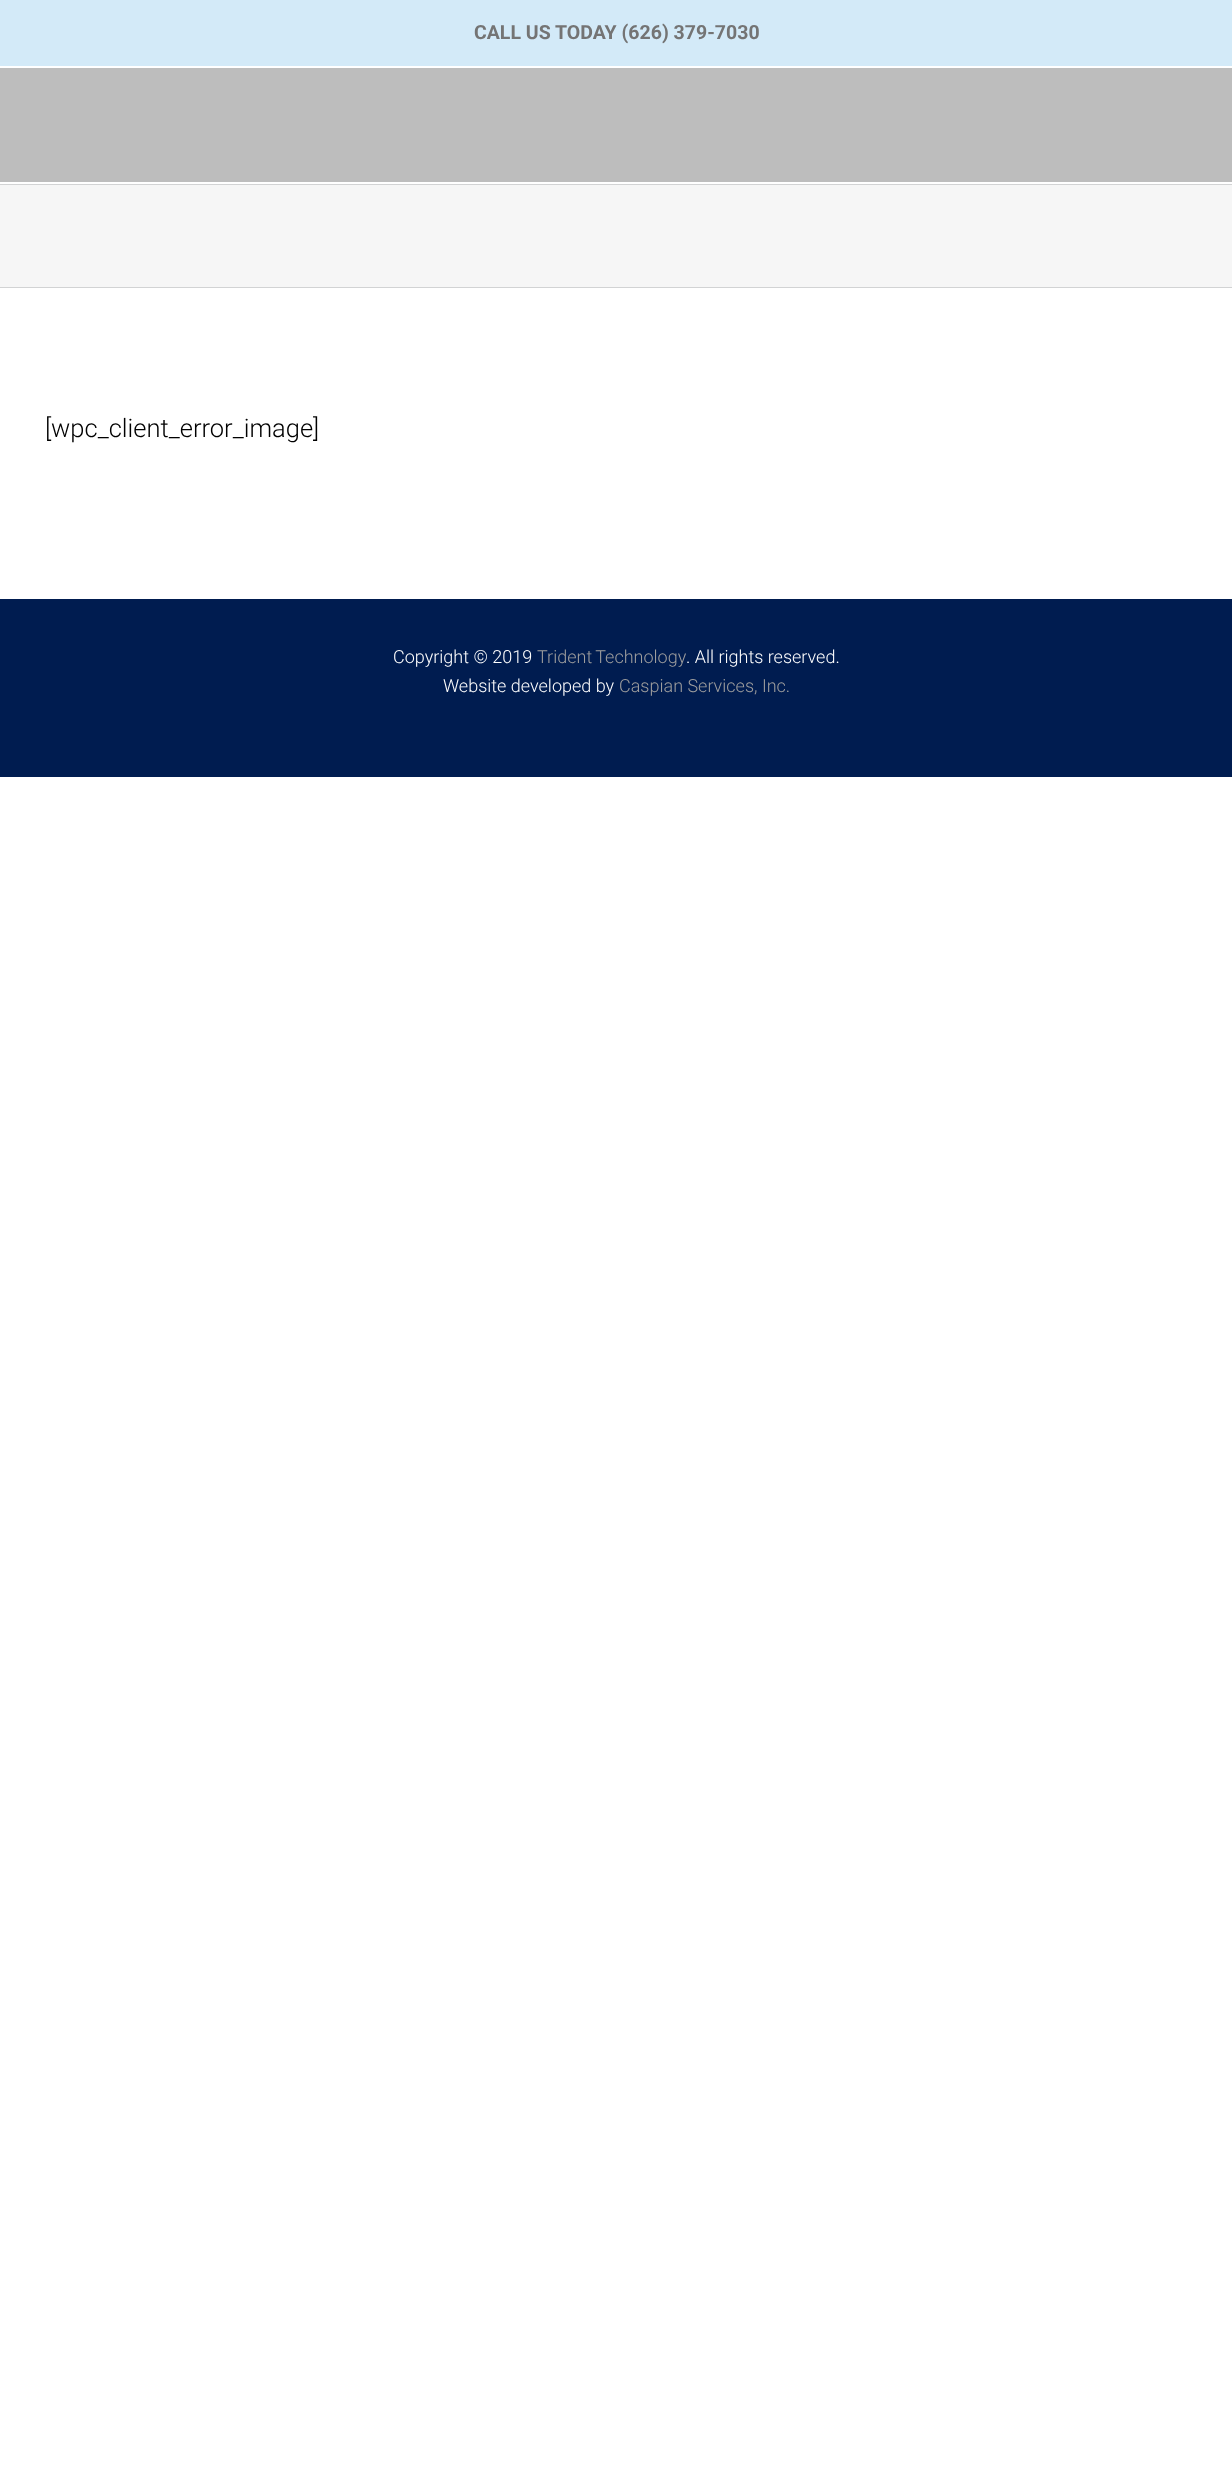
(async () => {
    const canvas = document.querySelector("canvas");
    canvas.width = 1232;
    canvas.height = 2490;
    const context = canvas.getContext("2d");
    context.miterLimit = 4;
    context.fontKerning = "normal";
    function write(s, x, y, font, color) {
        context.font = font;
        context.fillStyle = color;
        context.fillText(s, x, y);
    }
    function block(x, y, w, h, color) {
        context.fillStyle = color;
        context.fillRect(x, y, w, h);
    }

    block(0, 0, 1232, 2490, "rgb(255, 255, 255)");
    block(0, 0, 1232, 66, "rgb(211, 234, 248)");
    write("CALL US TODAY (626) 379-7030", 474, 39, "bold 19.5px Roboto", "rgb(116, 116, 116)");
    block(0, 68, 1232, 114, "rgb(189, 189, 189)");
    block(0, 185, 1232, 102, "rgb(246, 246, 246)");
    block(0, 184, 1232, 1, "rgb(210, 211, 212)");
    block(0, 287, 1232, 1, "rgb(210, 211, 212)");
    write("[wpc_client_error_image]", 45, 437, "300 25.5px Roboto", "rgb(0, 0, 0)");
    block(0, 599, 1232, 178, "rgb(0, 28, 80)");
    write("Copyright © 2019", 393, 663, "300 18px Roboto", "rgb(255, 255, 255)");
    context.wordSpacing = "-1px";
    write("Trident Technology", 537, 663, "300 18px Roboto", "rgb(158, 158, 158)");
    context.wordSpacing = "0px";
    write(". All rights reserved.", 686, 663, "300 18px Roboto", "rgb(255, 255, 255)");
    write("Website developed by", 443, 692, "300 18px Roboto", "rgb(255, 255, 255)");
    write("Caspian Services, Inc.", 619, 692, "300 18px Roboto", "rgb(158, 158, 158)");
})();
